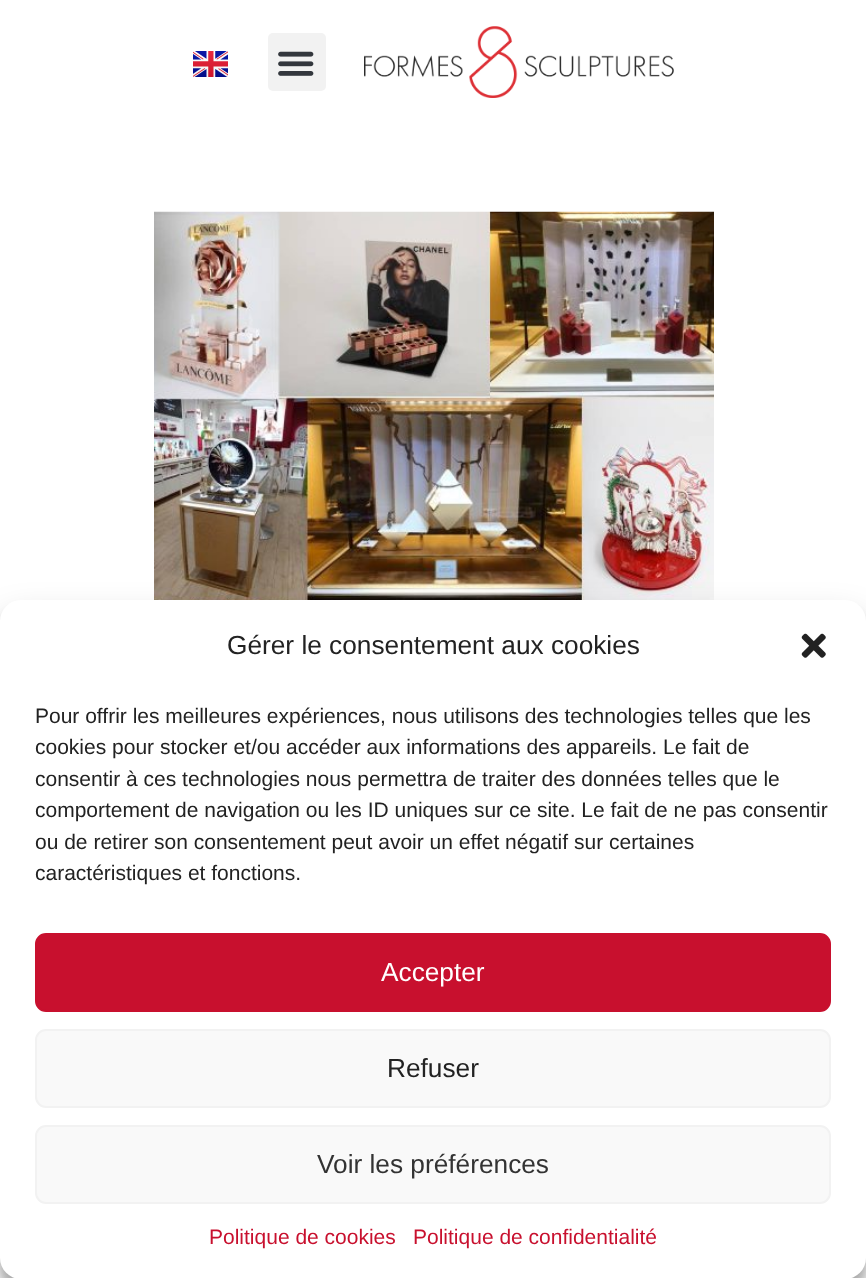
(async () => {
    const canvas = document.querySelector("canvas");
    canvas.width = 866;
    canvas.height = 1278;
    const context = canvas.getContext("2d");
    context.miterLimit = 4;
    context.fontKerning = "normal";
    function write(s, x, y, font, color) {
        context.font = font;
        context.fillStyle = color;
        context.fillText(s, x, y);
    }
    function block(x, y, w, h, color) {
        context.fillStyle = color;
        context.fillRect(x, y, w, h);
    }
    function card(x, y, w, h, r, color) {
        context.fillStyle = color;
        context.beginPath();
        context.roundRect(x, y, w, h, r);
        context.fill();
    }
    async function photo(src, x, y, w, h) {
        const img = new Image();
        img.src = src;
        await img.decode();
        context.drawImage(img, x, y, w, h);
    }

    block(0, 0, 866, 1278, "rgb(255, 255, 255)");
    await photo("media/1.png", 193, 51, 35, 26);
    card(268, 33, 58, 58, 5, "rgb(242, 242, 242)");
    await photo("media/2.png", 278, 51, 36, 25);
    await photo("media/3.png", 364, 26, 310, 72);
    await photo("media/4.png", 154, 211, 560, 389);
    context.fillStyle = "rgba(0, 0, 0, 0.23)";
    context.filter = "blur(5px)";
    context.beginPath();
    context.roundRect(0, 611, 866, 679, 21);
    context.fill();
    context.filter = "none";
    context.fillStyle = "rgba(0, 0, 0, 0.19)";
    context.filter = "blur(17.5px)";
    context.beginPath();
    context.roundRect(0, 618, 866, 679, 21);
    context.fill();
    context.filter = "none";
    card(0, 600, 866, 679, 21, "rgb(255, 255, 255)");
    write("Gérer le consentement aux cookies", 227, 654, "26.25px Liberation Sans", "rgb(34, 34, 34)");
    await photo("media/5.png", 801, 633, 25, 25);
    write("Pour offrir les meilleures expériences, nous utilisons des technologies telles que les", 35, 723, "21px Liberation Sans", "rgb(34, 34, 34)");
    write("cookies pour stocker et/ou accéder aux informations des appareils. Le fait de", 35, 754, "21px Liberation Sans", "rgb(34, 34, 34)");
    write("consentir à ces technologies nous permettra de traiter des données telles que le", 35, 786, "21px Liberation Sans", "rgb(34, 34, 34)");
    write("comportement de navigation ou les ID uniques sur ce site. Le fait de ne pas consentir", 35, 817, "21px Liberation Sans", "rgb(34, 34, 34)");
    write("ou de retirer son consentement peut avoir un effet négatif sur certaines", 35, 849, "21px Liberation Sans", "rgb(34, 34, 34)");
    write("caractéristiques et fonctions.", 35, 880, "21px Liberation Sans", "rgb(34, 34, 34)");
    context.fillStyle = "rgb(200, 16, 46)";
    context.beginPath();
    context.roundRect(36, 934, 794, 77, 10);
    context.fill();
    context.strokeStyle = "rgb(200, 16, 46)";
    context.lineWidth = 2;
    context.stroke();
    write("Accepter", 381, 981, "26.25px Liberation Sans", "rgb(255, 255, 255)");
    context.fillStyle = "rgb(249, 249, 249)";
    context.beginPath();
    context.roundRect(36, 1030, 794, 77, 10);
    context.fill();
    context.strokeStyle = "rgb(242, 242, 242)";
    context.stroke();
    write("Refuser", 387, 1077, "26.25px Liberation Sans", "rgb(34, 34, 34)");
    context.fillStyle = "rgb(249, 249, 249)";
    context.beginPath();
    context.roundRect(36, 1126, 794, 77, 10);
    context.fill();
    context.stroke();
    write("Voir les préférences", 317, 1173, "26.25px Liberation Sans", "rgb(51, 51, 51)");
    write("Politique de cookies", 209, 1244, "21px Liberation Sans", "rgb(200, 16, 46)");
    write("Politique de confidentialité", 413, 1244, "21px Liberation Sans", "rgb(200, 16, 46)");
})();
